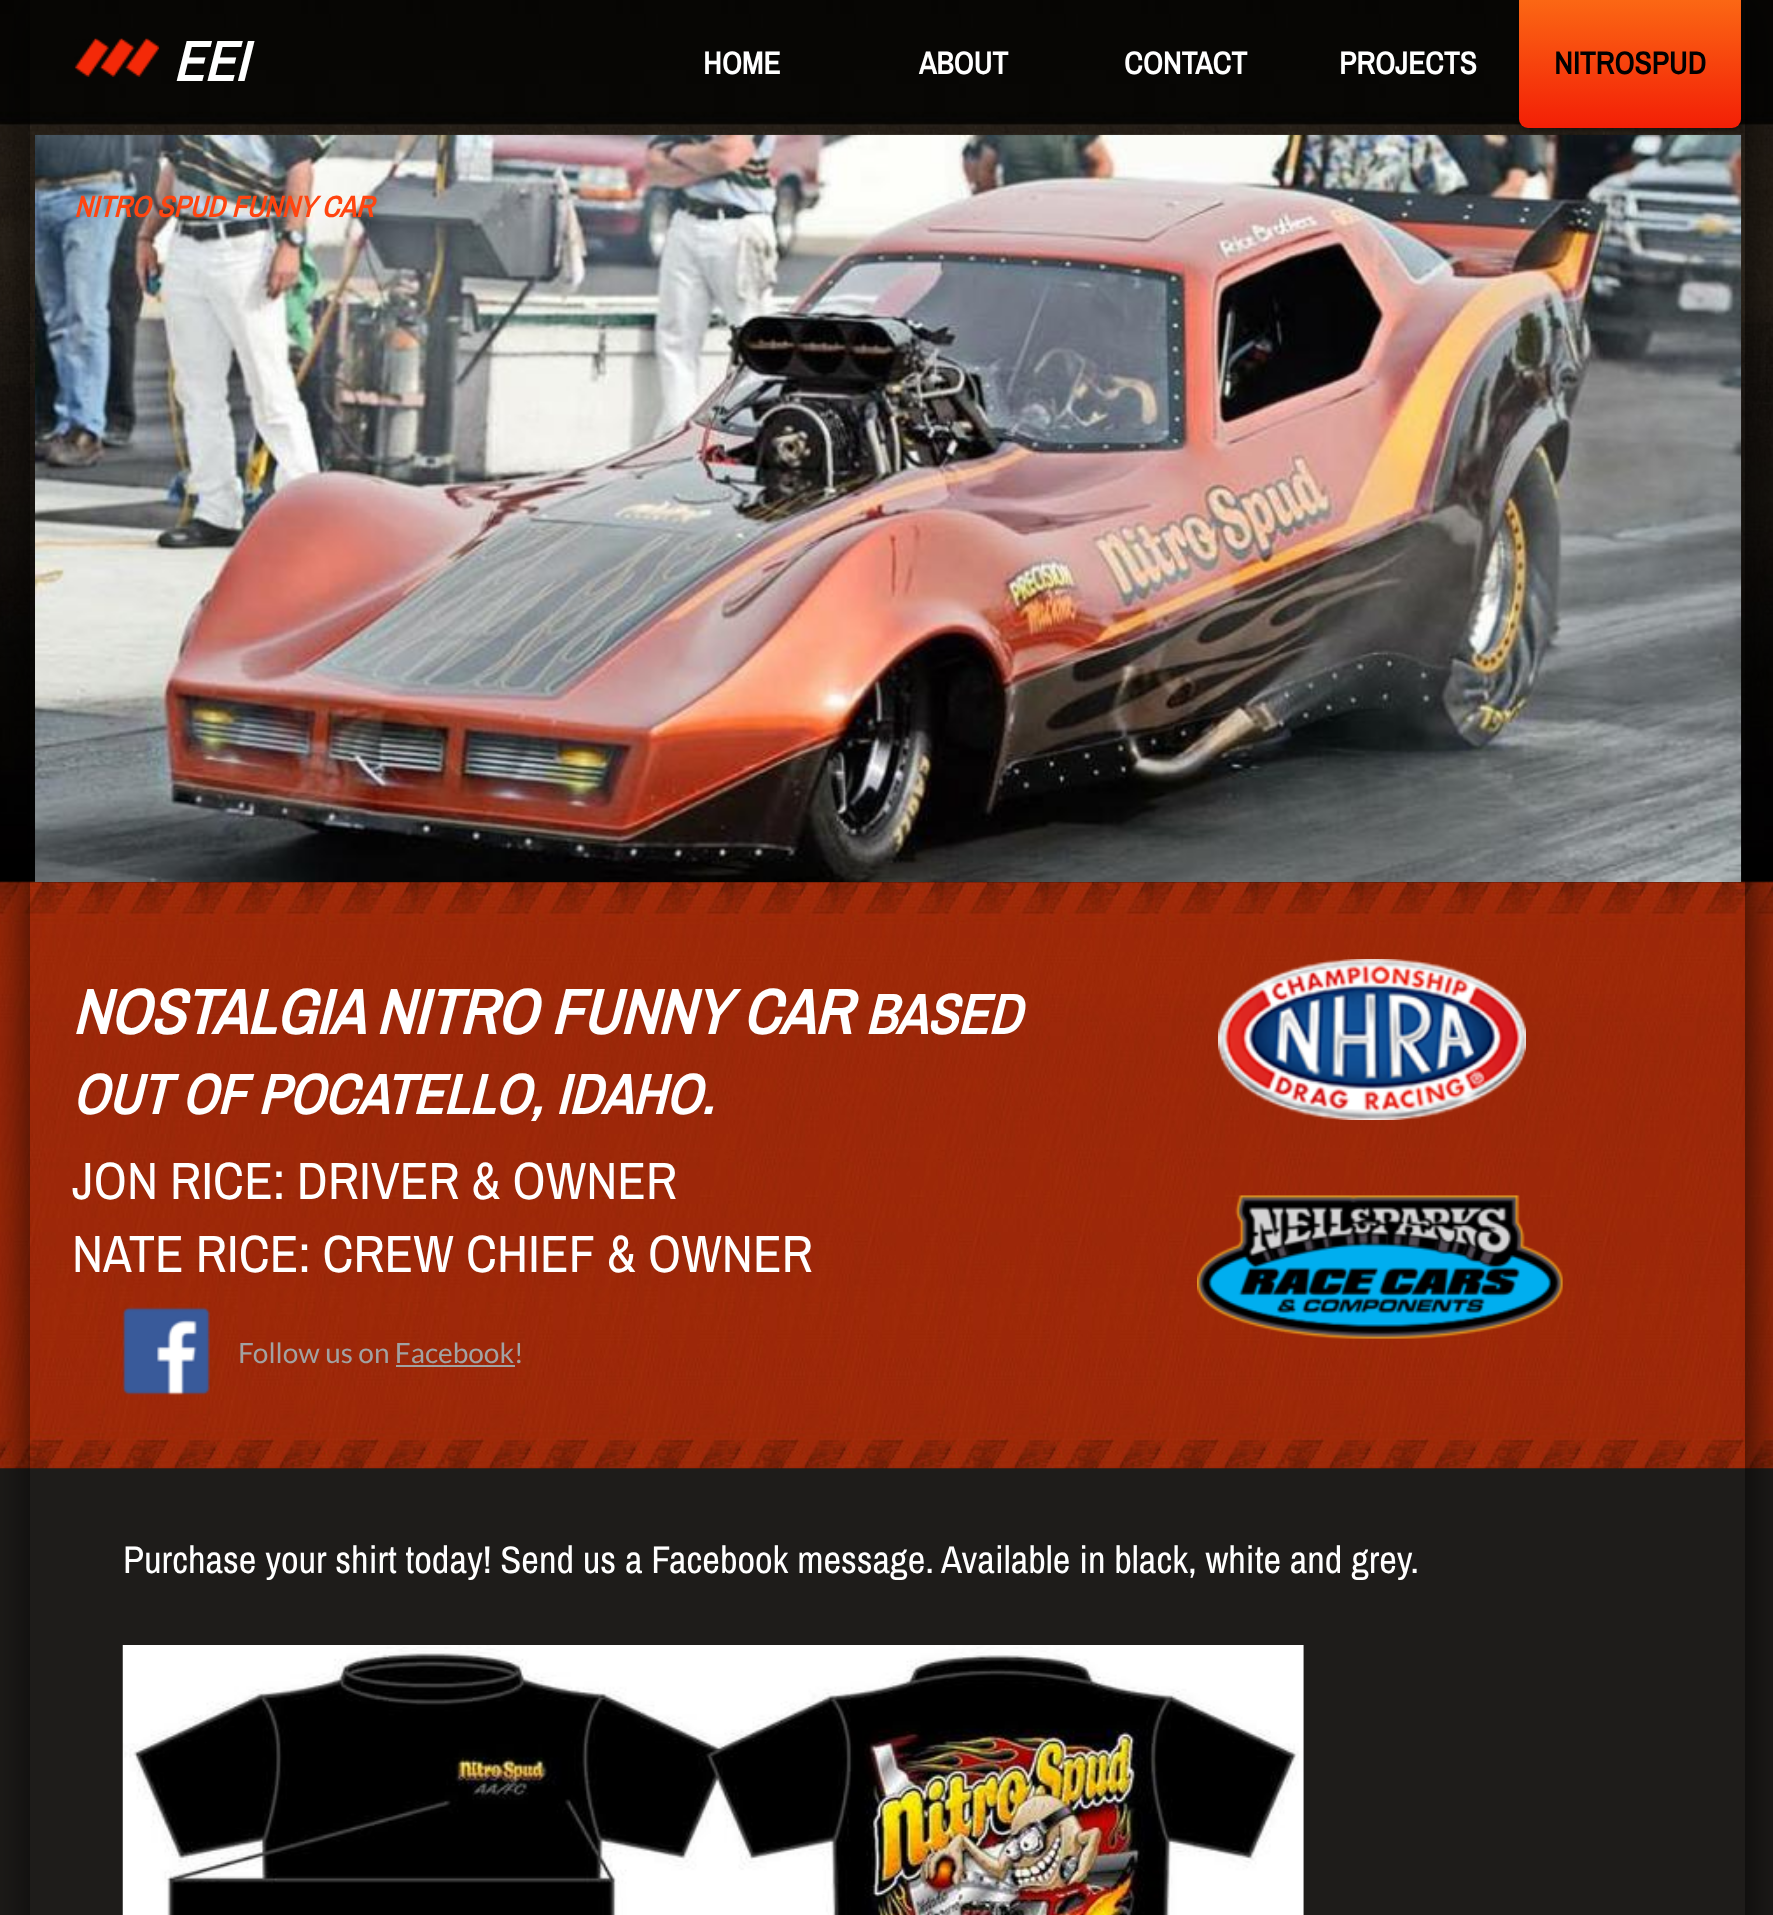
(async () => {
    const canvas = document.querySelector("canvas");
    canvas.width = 1773;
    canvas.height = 1915;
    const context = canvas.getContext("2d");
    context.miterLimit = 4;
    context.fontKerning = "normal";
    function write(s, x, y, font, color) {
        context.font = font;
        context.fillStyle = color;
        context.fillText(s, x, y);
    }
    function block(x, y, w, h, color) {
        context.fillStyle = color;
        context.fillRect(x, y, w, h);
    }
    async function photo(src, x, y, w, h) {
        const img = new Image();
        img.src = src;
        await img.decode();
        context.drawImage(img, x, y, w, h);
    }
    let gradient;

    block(0, 0, 1773, 1915, "rgb(30, 28, 26)");
    await photo("media/1.png", 0, 0, 1773, 1469);
    context.save();
    context.beginPath();
    context.moveTo(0, 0);
    context.lineTo(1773, 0);
    context.lineTo(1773, 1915);
    context.lineTo(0, 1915);
    context.closePath();
    context.moveTo(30, 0);
    context.lineTo(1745, 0);
    context.lineTo(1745, 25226);
    context.lineTo(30, 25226);
    context.closePath();
    context.clip("evenodd");
    context.fillStyle = "rgba(0, 0, 0, 0.8)";
    context.filter = "blur(26px)";
    context.beginPath();
    context.rect(32, 2, 1715, 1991);
    context.fill();
    context.filter = "none";
    context.restore();
    await photo("media/2.png", 74, 38, 86, 39);
    write("EEI", 173, 81, "italic bold 56px Archivo Narrow", "rgb(255, 255, 255)");
    write("HOME", 703, 74, "bold 31.5px Archivo Narrow", "rgb(255, 255, 255)");
    write("ABOUT", 919, 74, "bold 31.5px Archivo Narrow", "rgb(255, 255, 255)");
    write("CONTACT", 1124, 74, "bold 31.5px Archivo Narrow", "rgb(255, 255, 255)");
    write("PROJECTS", 1339, 74, "bold 31.5px Archivo Narrow", "rgb(255, 255, 255)");
    context.fillStyle = "rgba(0, 0, 0, 0.4)";
    context.filter = "blur(2px)";
    context.beginPath();
    context.roundRect(1521, 2, 222, 128, 9);
    context.fill();
    context.filter = "none";
    gradient = context.createLinearGradient(1630, 0, 1630, 128);
    gradient.addColorStop(0, "rgb(251, 103, 20)");
    gradient.addColorStop(1, "rgb(243, 31, 6)");
    context.fillStyle = gradient;
    context.beginPath();
    context.roundRect(1519, 0, 222, 128, [0, 0, 9, 9]);
    context.fill();
    write("NITROSPUD", 1554, 74, "bold 31.5px Archivo Narrow", "rgb(1, 1, 1)");
    await photo("media/3.png", 35, 134, 1707, 748);
    write("NITRO SPUD FUNNY CAR", 74, 217, "italic bold 29.75px Archivo Narrow", "rgb(255, 69, 16)");
    write("NOSTALGIA NITRO FUNNY CAR", 72, 1034, "italic bold 63px Archivo Narrow", "rgb(255, 255, 255)");
    write("BASED", 865, 1034, "italic bold 56px Archivo Narrow", "rgb(255, 255, 255)");
    write("OUT OF POCATELLO, IDAHO.", 72, 1114, "italic bold 56px Archivo Narrow", "rgb(255, 255, 255)");
    await photo("media/4.png", 1218, 959, 308, 161);
    write("JON RICE: DRIVER & OWNER", 72, 1199, "52.5px Archivo Narrow", "rgb(255, 255, 255)");
    write("NATE RICE: CREW CHIEF & OWNER", 72, 1272, "52.5px Archivo Narrow", "rgb(255, 255, 255)");
    await photo("media/5.png", 1197, 1195, 366, 144);
    await photo("media/6.png", 122, 1307, 88, 88);
    write("Follow us on Facebook!", 238, 1363, "28px Lato", "rgb(162, 162, 162)");
    block(396, 1365, 119, 2, "rgb(162, 162, 162)");
    write("Purchase your shirt today! Send us a Facebook message. Available in black, white and grey.", 123, 1573, "38.5px Archivo Narrow", "rgb(255, 255, 255)");
    await photo("media/7.png", 122, 1645, 1182, 270);
})();
